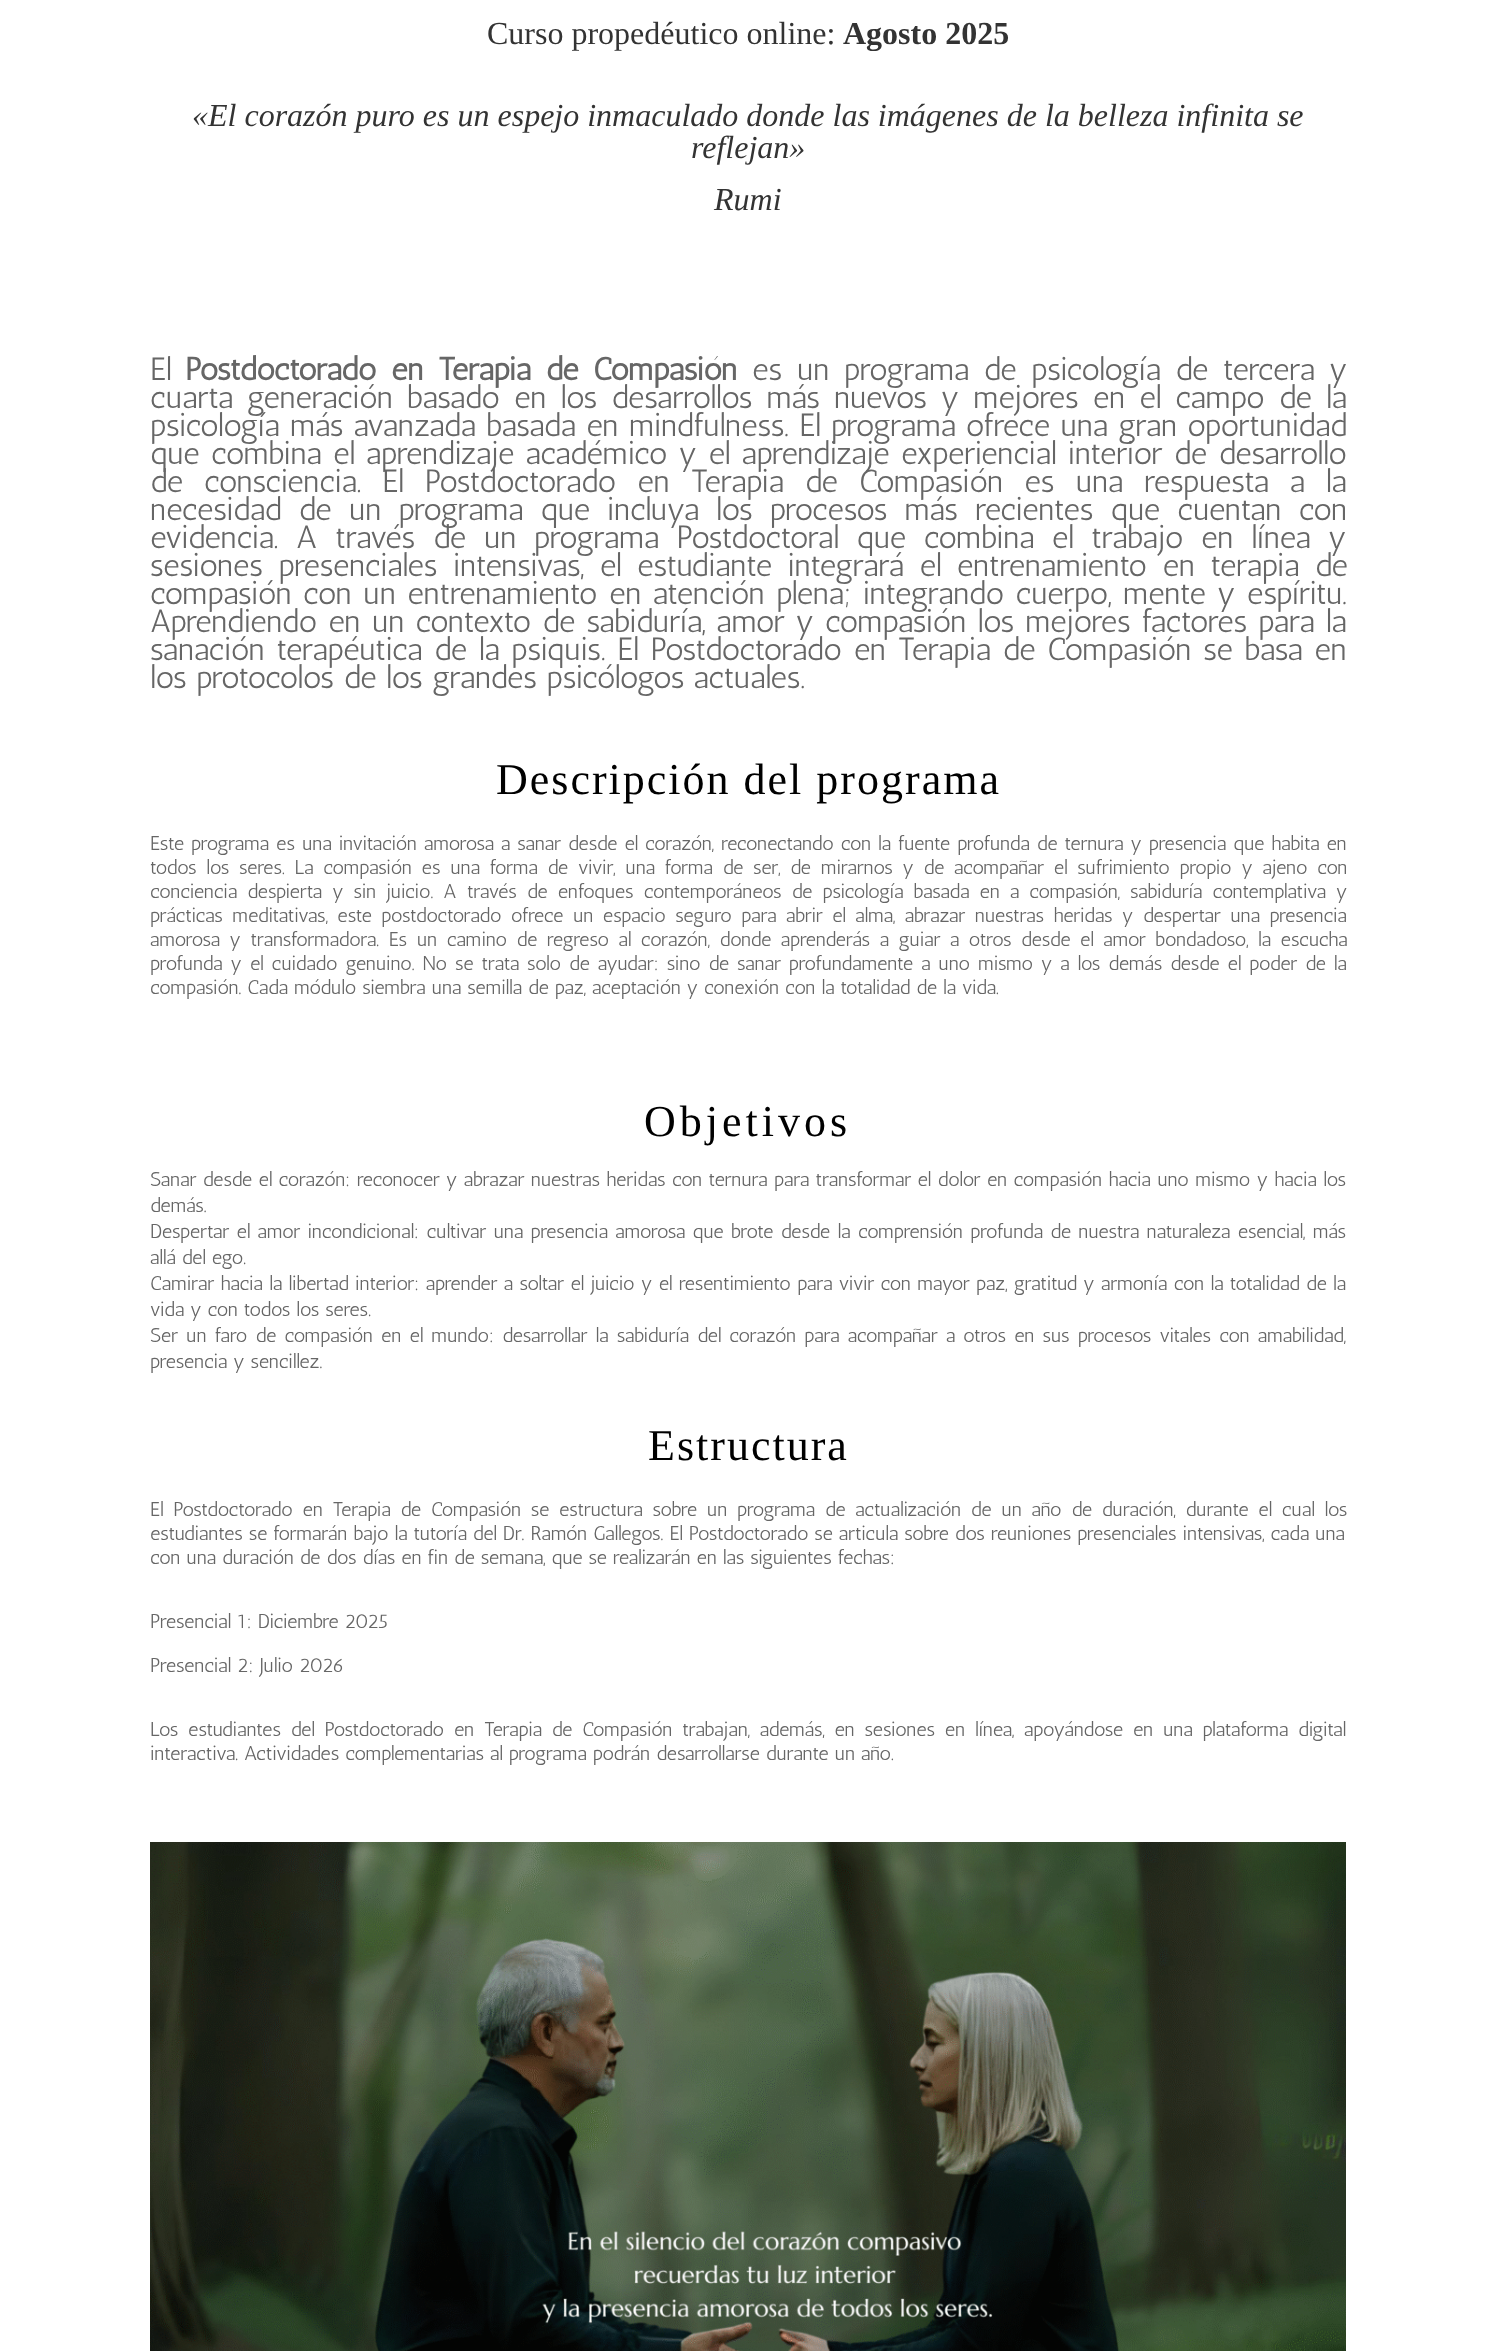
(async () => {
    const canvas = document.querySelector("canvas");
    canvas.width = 1495;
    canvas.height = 2351;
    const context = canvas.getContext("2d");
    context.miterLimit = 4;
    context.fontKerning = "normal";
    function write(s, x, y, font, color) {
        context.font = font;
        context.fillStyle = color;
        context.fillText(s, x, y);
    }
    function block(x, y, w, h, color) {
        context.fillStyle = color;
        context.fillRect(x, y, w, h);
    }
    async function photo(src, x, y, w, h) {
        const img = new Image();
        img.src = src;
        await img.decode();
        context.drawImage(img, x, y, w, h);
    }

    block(0, 0, 1495, 2351, "rgb(255, 255, 255)");
    write("Curso propedéutico online:", 487, 44, "32px Liberation Serif", "rgb(51, 51, 51)");
    write("Agosto 2025", 843, 44, "bold 32px Liberation Serif", "rgb(51, 51, 51)");
    write("«El corazón puro es un espejo inmaculado donde las imágenes de la belleza infinita se", 192, 126, "italic 32px Liberation Serif", "rgb(51, 51, 51)");
    write("reflejan»", 691, 158, "italic 32px Liberation Serif", "rgb(51, 51, 51)");
    write("Rumi", 714, 210, "italic 32px Liberation Serif", "rgb(51, 51, 51)");
    write("El", 150, 380, "32px Antic", "rgb(102, 102, 102)");
    context.wordSpacing = "5px";
    write("Postdoctorado en Terapia de Compasión", 185, 380, "bold 32px Antic", "rgb(102, 102, 102)");
    write("es un programa de psicología de tercera y", 752, 380, "32px Antic", "rgb(102, 102, 102)");
    context.wordSpacing = "4.5px";
    write("cuarta generación basado en los desarrollos más nuevos y mejores en el campo de la", 150, 408, "32px Antic", "rgb(102, 102, 102)");
    context.wordSpacing = "0.75px";
    write("psicología más avanzada basada en mindfulness. El programa ofrece una gran oportunidad", 150, 436, "32px Antic", "rgb(102, 102, 102)");
    context.wordSpacing = "1.9px";
    write("que combina el aprendizaje académico y el aprendizaje experiencial interior de desarrollo", 150, 464, "32px Antic", "rgb(102, 102, 102)");
    context.wordSpacing = "11.5px";
    write("de consciencia. El Postdoctorado en Terapia de Compasión es una respuesta a la", 150, 492, "32px Antic", "rgb(102, 102, 102)");
    context.wordSpacing = "7.5px";
    write("necesidad de un programa que incluya los procesos más recientes que cuentan con", 150, 520, "32px Antic", "rgb(102, 102, 102)");
    context.wordSpacing = "8.1px";
    write("evidencia. A través de un programa Postdoctoral que combina el trabajo en línea y", 150, 548, "32px Antic", "rgb(102, 102, 102)");
    context.wordSpacing = "6px";
    write("sesiones presenciales intensivas, el estudiante integrará el entrenamiento en terapia de", 150, 576, "32px Antic", "rgb(102, 102, 102)");
    context.wordSpacing = "1.9px";
    write("compasión con un entrenamiento en atención plena; integrando cuerpo, mente y espíritu.", 150, 604, "32px Antic", "rgb(102, 102, 102)");
    context.wordSpacing = "1.5px";
    write("Aprendiendo en un contexto de sabiduría, amor y compasión los mejores factores para la", 150, 632, "32px Antic", "rgb(102, 102, 102)");
    context.wordSpacing = "2.2px";
    write("sanación terapéutica de la psiquis. El Postdoctorado en Terapia de Compasión se basa en", 150, 660, "32px Antic", "rgb(102, 102, 102)");
    context.wordSpacing = "0px";
    write("los protocolos de los grandes psicólogos actuales.", 150, 688, "32px Antic", "rgb(102, 102, 102)");
    context.letterSpacing = "2px";
    write("Descripción del programa", 496, 794, "44px Liberation Serif", "rgb(0, 0, 0)");
    context.letterSpacing = "0px";
    context.wordSpacing = "1.05px";
    write("Este programa es una invitación amorosa a sanar desde el corazón, reconectando con la fuente profunda de ternura y presencia que habita en", 150, 850, "20px Antic", "rgb(102, 102, 102)");
    context.wordSpacing = "3.8px";
    write("todos los seres. La compasión es una forma de vivir, una forma de ser, de mirarnos y de acompañar el sufrimiento propio y ajeno con", 150, 874, "20px Antic", "rgb(102, 102, 102)");
    context.wordSpacing = "4.1px";
    write("conciencia despierta y sin juicio. A través de enfoques contemporáneos de psicología basada en a compasión, sabiduría contemplativa y", 150, 898, "20px Antic", "rgb(102, 102, 102)");
    context.wordSpacing = "3.5px";
    write("prácticas meditativas, este postdoctorado ofrece un espacio seguro para abrir el alma, abrazar nuestras heridas y despertar una presencia", 150, 922, "20px Antic", "rgb(102, 102, 102)");
    context.wordSpacing = "3.6px";
    write("amorosa y transformadora. Es un camino de regreso al corazón, donde aprenderás a guiar a otros desde el amor bondadoso, la escucha", 150, 946, "20px Antic", "rgb(102, 102, 102)");
    context.wordSpacing = "2px";
    write("profunda y el cuidado genuino. No se trata solo de ayudar: sino de sanar profundamente a uno mismo y a los demás desde el poder de la", 150, 970, "20px Antic", "rgb(102, 102, 102)");
    context.wordSpacing = "0px";
    write("compasión. Cada módulo siembra una semilla de paz, aceptación y conexión con la totalidad de la vida.", 150, 994, "20px Antic", "rgb(102, 102, 102)");
    context.letterSpacing = "4px";
    write("Objetivos", 644, 1136, "44px Liberation Serif", "rgb(0, 0, 0)");
    context.letterSpacing = "0px";
    context.wordSpacing = "0.4px";
    write("Sanar desde el corazón: reconocer y abrazar nuestras heridas con ternura para transformar el dolor en compasión hacia uno mismo y hacia los", 150, 1186, "20px Antic", "rgb(102, 102, 102)");
    context.wordSpacing = "0px";
    write("demás.", 150, 1212, "20px Antic", "rgb(102, 102, 102)");
    context.wordSpacing = "1.4px";
    write("Despertar el amor incondicional: cultivar una presencia amorosa que brote desde la comprensión profunda de nuestra naturaleza esencial, más", 150, 1238, "20px Antic", "rgb(102, 102, 102)");
    context.wordSpacing = "0px";
    write("allá del ego.", 150, 1264, "20px Antic", "rgb(102, 102, 102)");
    context.wordSpacing = "0.4px";
    write("Camirar hacia la libertad interior: aprender a soltar el juicio y el resentimiento para vivir con mayor paz, gratitud y armonía con la totalidad de la", 150, 1290, "20px Antic", "rgb(102, 102, 102)");
    context.wordSpacing = "0px";
    write("vida y con todos los seres.", 150, 1316, "20px Antic", "rgb(102, 102, 102)");
    context.wordSpacing = "2.2px";
    write("Ser un faro de compasión en el mundo: desarrollar la sabiduría del corazón para acompañar a otros en sus procesos vitales con amabilidad,", 150, 1342, "20px Antic", "rgb(102, 102, 102)");
    context.wordSpacing = "0px";
    write("presencia y sencillez.", 150, 1368, "20px Antic", "rgb(102, 102, 102)");
    context.letterSpacing = "2px";
    write("Estructura", 648, 1460, "44px Liberation Serif", "rgb(0, 0, 0)");
    context.letterSpacing = "0px";
    context.wordSpacing = "3.8px";
    write("El Postdoctorado en Terapia de Compasión se estructura sobre un programa de actualización de un año de duración, durante el cual los", 150, 1516, "20px Antic", "rgb(102, 102, 102)");
    context.wordSpacing = "0px";
    write("estudiantes se formarán bajo la tutoría del Dr. Ramón Gallegos. El Postdoctorado se articula sobre dos reuniones presenciales intensivas, cada una", 150, 1540, "20px Antic", "rgb(102, 102, 102)");
    write("con una duración de dos días en fin de semana, que se realizarán en las siguientes fechas:", 150, 1564, "20px Antic", "rgb(102, 102, 102)");
    write("Presencial 1: Diciembre 2025", 150, 1628, "20px Antic", "rgb(102, 102, 102)");
    write("Presencial 2: Julio 2026", 150, 1672, "20px Antic", "rgb(102, 102, 102)");
    context.wordSpacing = "3.8px";
    write("Los estudiantes del Postdoctorado en Terapia de Compasión trabajan, además, en sesiones en línea, apoyándose en una plataforma digital", 150, 1736, "20px Antic", "rgb(102, 102, 102)");
    context.wordSpacing = "0px";
    write("interactiva. Actividades complementarias al programa podrán desarrollarse durante un año.", 150, 1760, "20px Antic", "rgb(102, 102, 102)");
    await photo("media/1.png", 150, 1842, 1196, 509);
})();
